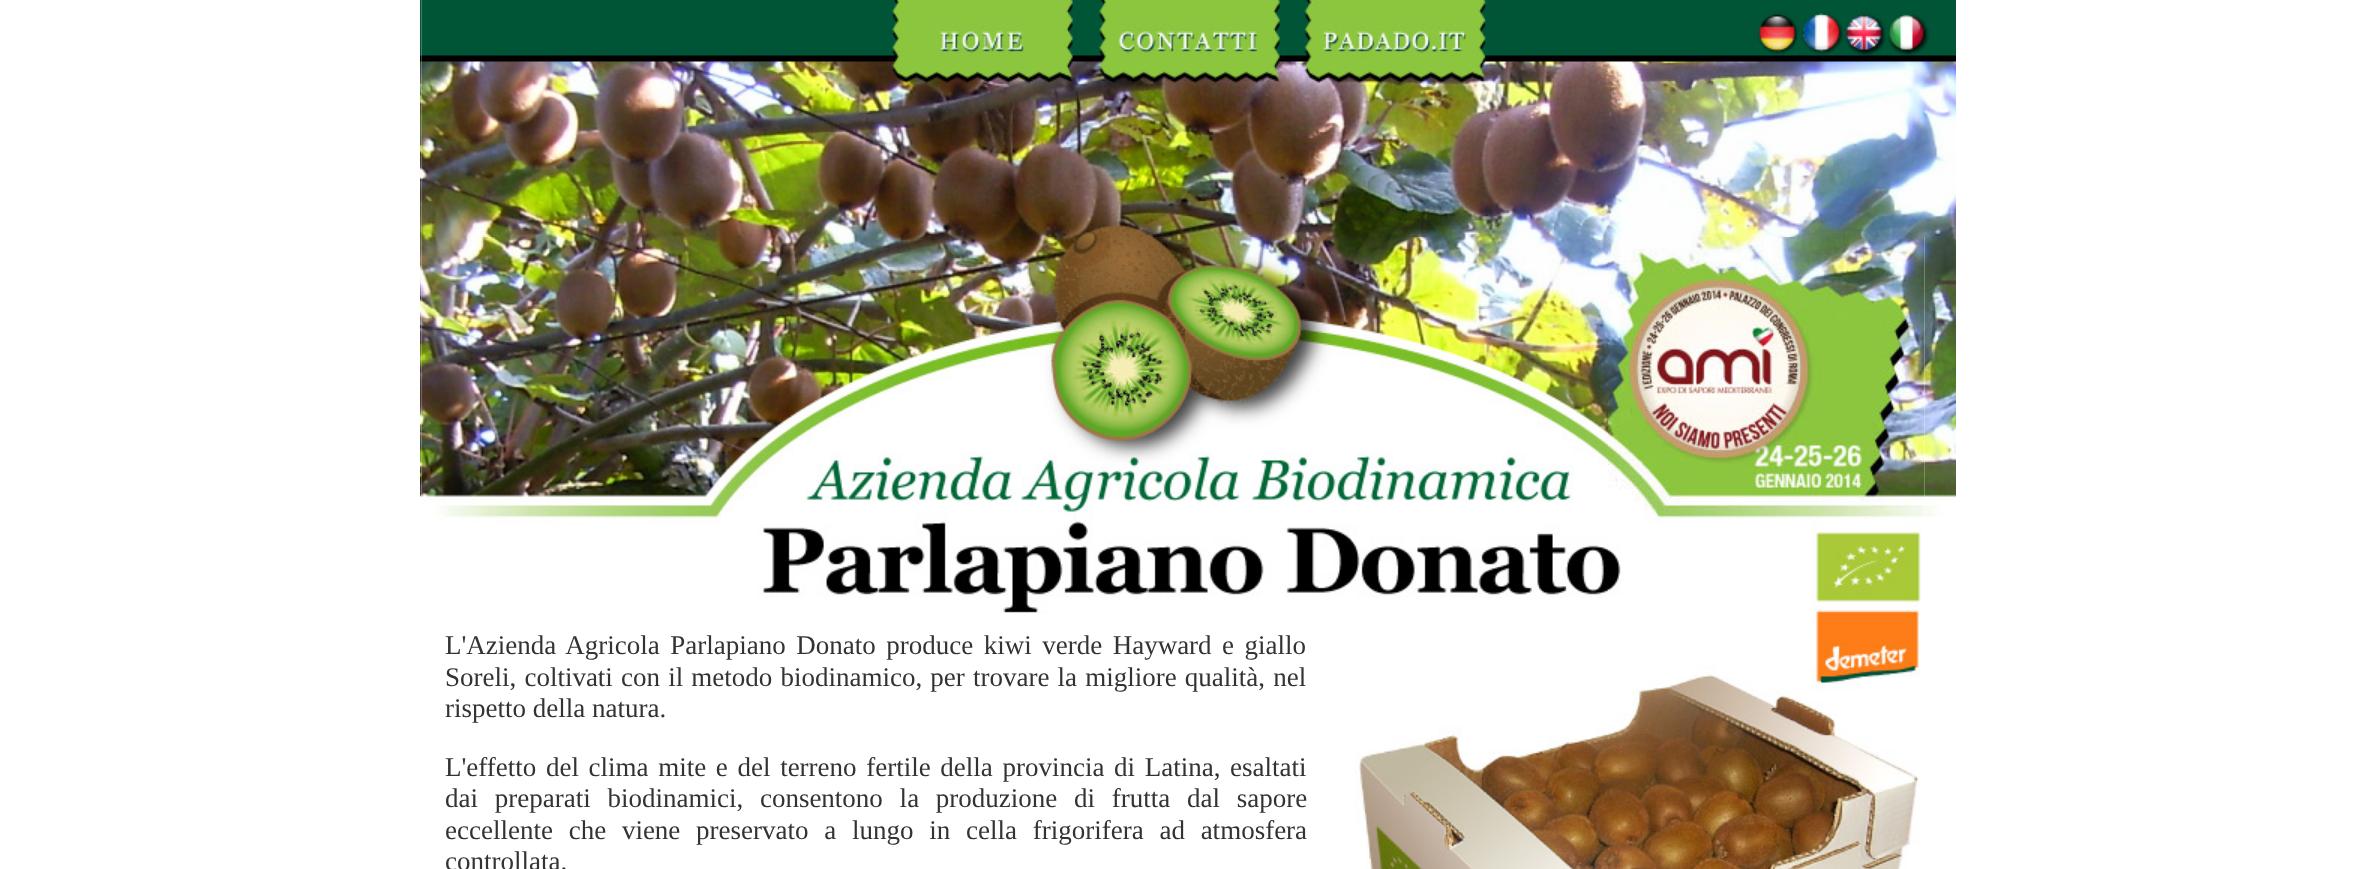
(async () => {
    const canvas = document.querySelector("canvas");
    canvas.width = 2375;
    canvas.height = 869;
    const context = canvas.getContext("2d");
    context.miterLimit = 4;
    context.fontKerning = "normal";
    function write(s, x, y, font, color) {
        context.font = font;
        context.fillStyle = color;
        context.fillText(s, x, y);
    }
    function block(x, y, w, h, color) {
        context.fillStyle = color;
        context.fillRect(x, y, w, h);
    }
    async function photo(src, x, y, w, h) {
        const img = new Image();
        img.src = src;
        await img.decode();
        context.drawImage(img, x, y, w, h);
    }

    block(0, 0, 2375, 869, "rgb(255, 255, 255)");
    await photo("media/1.png", 420, 0, 2, 497);
    await photo("media/2.png", 421, 0, 1535, 237);
    await photo("media/3.png", 421, 237, 1187, 376);
    await photo("media/4.png", 1608, 237, 317, 273);
    await photo("media/5.png", 1924, 237, 32, 280);
    context.wordSpacing = "3.75px";
    write("L'Azienda Agricola Parlapiano Donato produce kiwi verde Hayward e giallo", 445, 654, "27px Liberation Serif", "rgb(51, 51, 51)");
    context.wordSpacing = "1.4px";
    write("Soreli, coltivati con il metodo biodinamico, per trovare la migliore qualità, nel", 445, 686, "27px Liberation Serif", "rgb(51, 51, 51)");
    context.wordSpacing = "0px";
    write("rispetto della natura.", 445, 717, "27px Liberation Serif", "rgb(51, 51, 51)");
    context.wordSpacing = "2.9px";
    write("L'effetto del clima mite e del terreno fertile della provincia di Latina, esaltati", 445, 776, "27px Liberation Serif", "rgb(51, 51, 51)");
    context.wordSpacing = "10px";
    write("dai preparati biodinamici, consentono la produzione di frutta dal sapore", 445, 807, "27px Liberation Serif", "rgb(51, 51, 51)");
    context.wordSpacing = "9px";
    write("eccellente che viene preservato a lungo in cella frigorifera ad atmosfera", 445, 839, "27px Liberation Serif", "rgb(51, 51, 51)");
    context.wordSpacing = "0px";
    write("controllata.", 445, 870, "27px Liberation Serif", "rgb(51, 51, 51)");
    await photo("media/6.png", 1355, 726, 253, 143);
    await photo("media/7.png", 1608, 510, 317, 359);
})();
